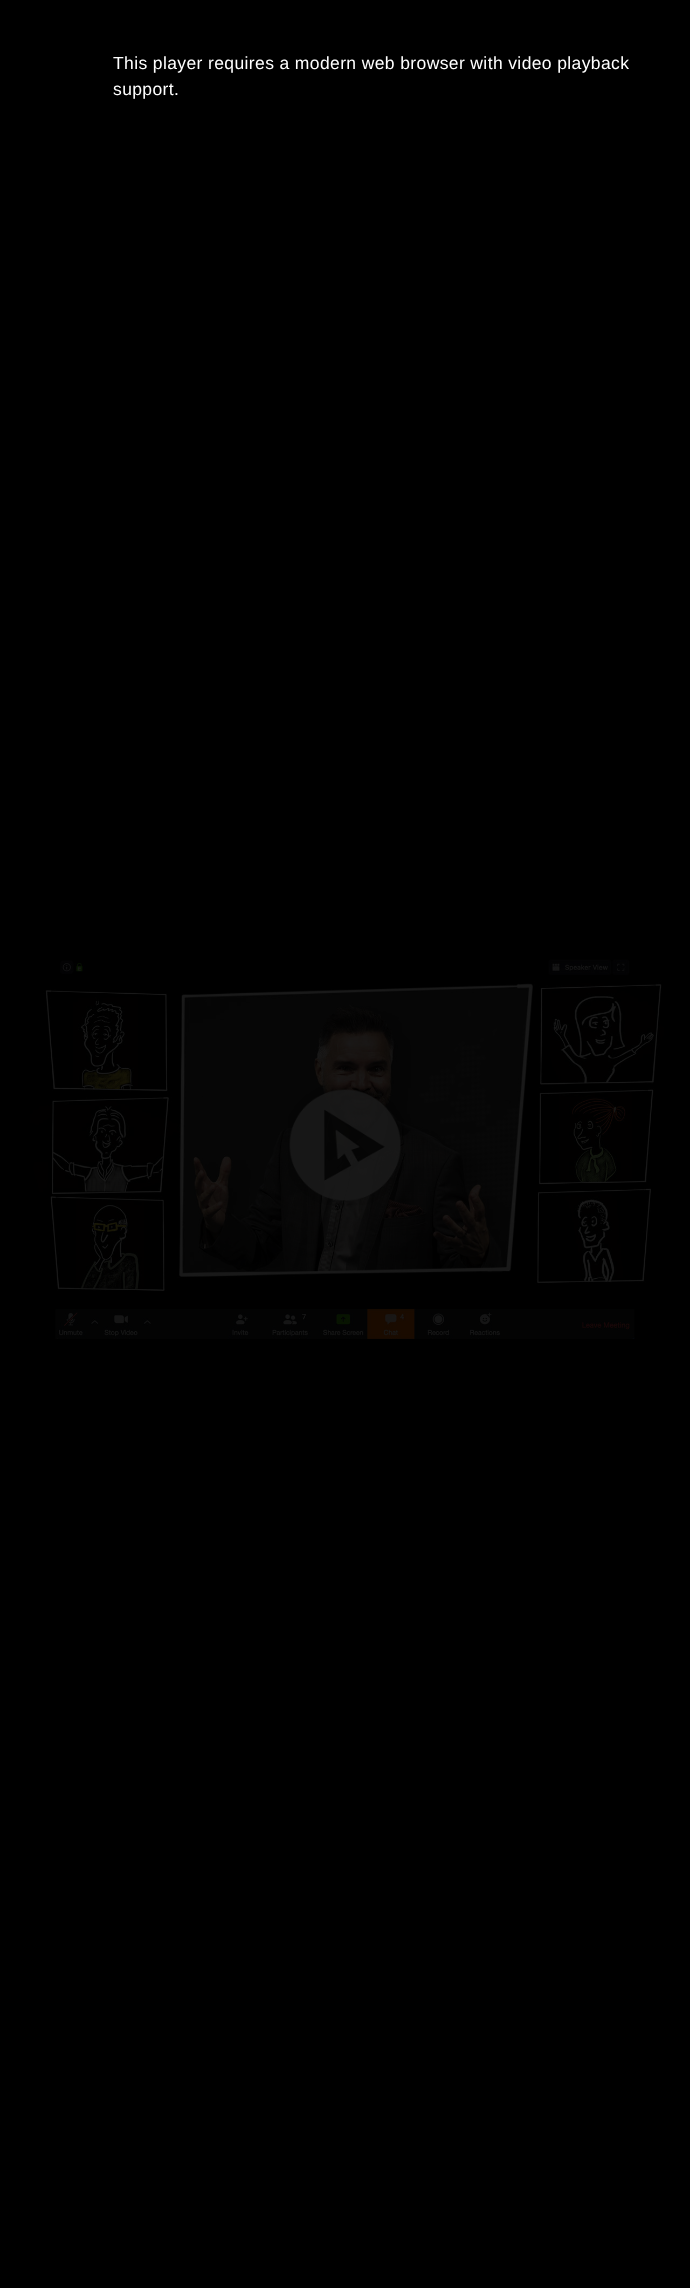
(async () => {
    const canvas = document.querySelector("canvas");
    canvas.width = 690;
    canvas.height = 2288;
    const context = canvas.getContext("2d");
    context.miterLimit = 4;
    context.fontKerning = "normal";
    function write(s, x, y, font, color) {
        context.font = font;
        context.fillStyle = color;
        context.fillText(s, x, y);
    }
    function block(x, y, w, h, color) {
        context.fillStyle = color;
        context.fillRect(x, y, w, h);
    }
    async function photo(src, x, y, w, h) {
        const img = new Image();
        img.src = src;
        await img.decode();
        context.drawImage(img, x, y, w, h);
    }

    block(0, 0, 690, 2288, "rgb(0, 0, 0)");
    context.letterSpacing = "0.38px";
    write("This player requires a modern web browser with video playback", 113, 69, "17.5px Liberation Sans", "rgb(255, 255, 255)");
    write("support.", 113, 95, "17.5px Liberation Sans", "rgb(255, 255, 255)");
    await photo("media/1.png", 30, 959, 634, 380);
    await photo("media/2.png", 56, 1338, 579, 1);
    await photo("media/3.png", 288, 1085, 116, 120);
})();
